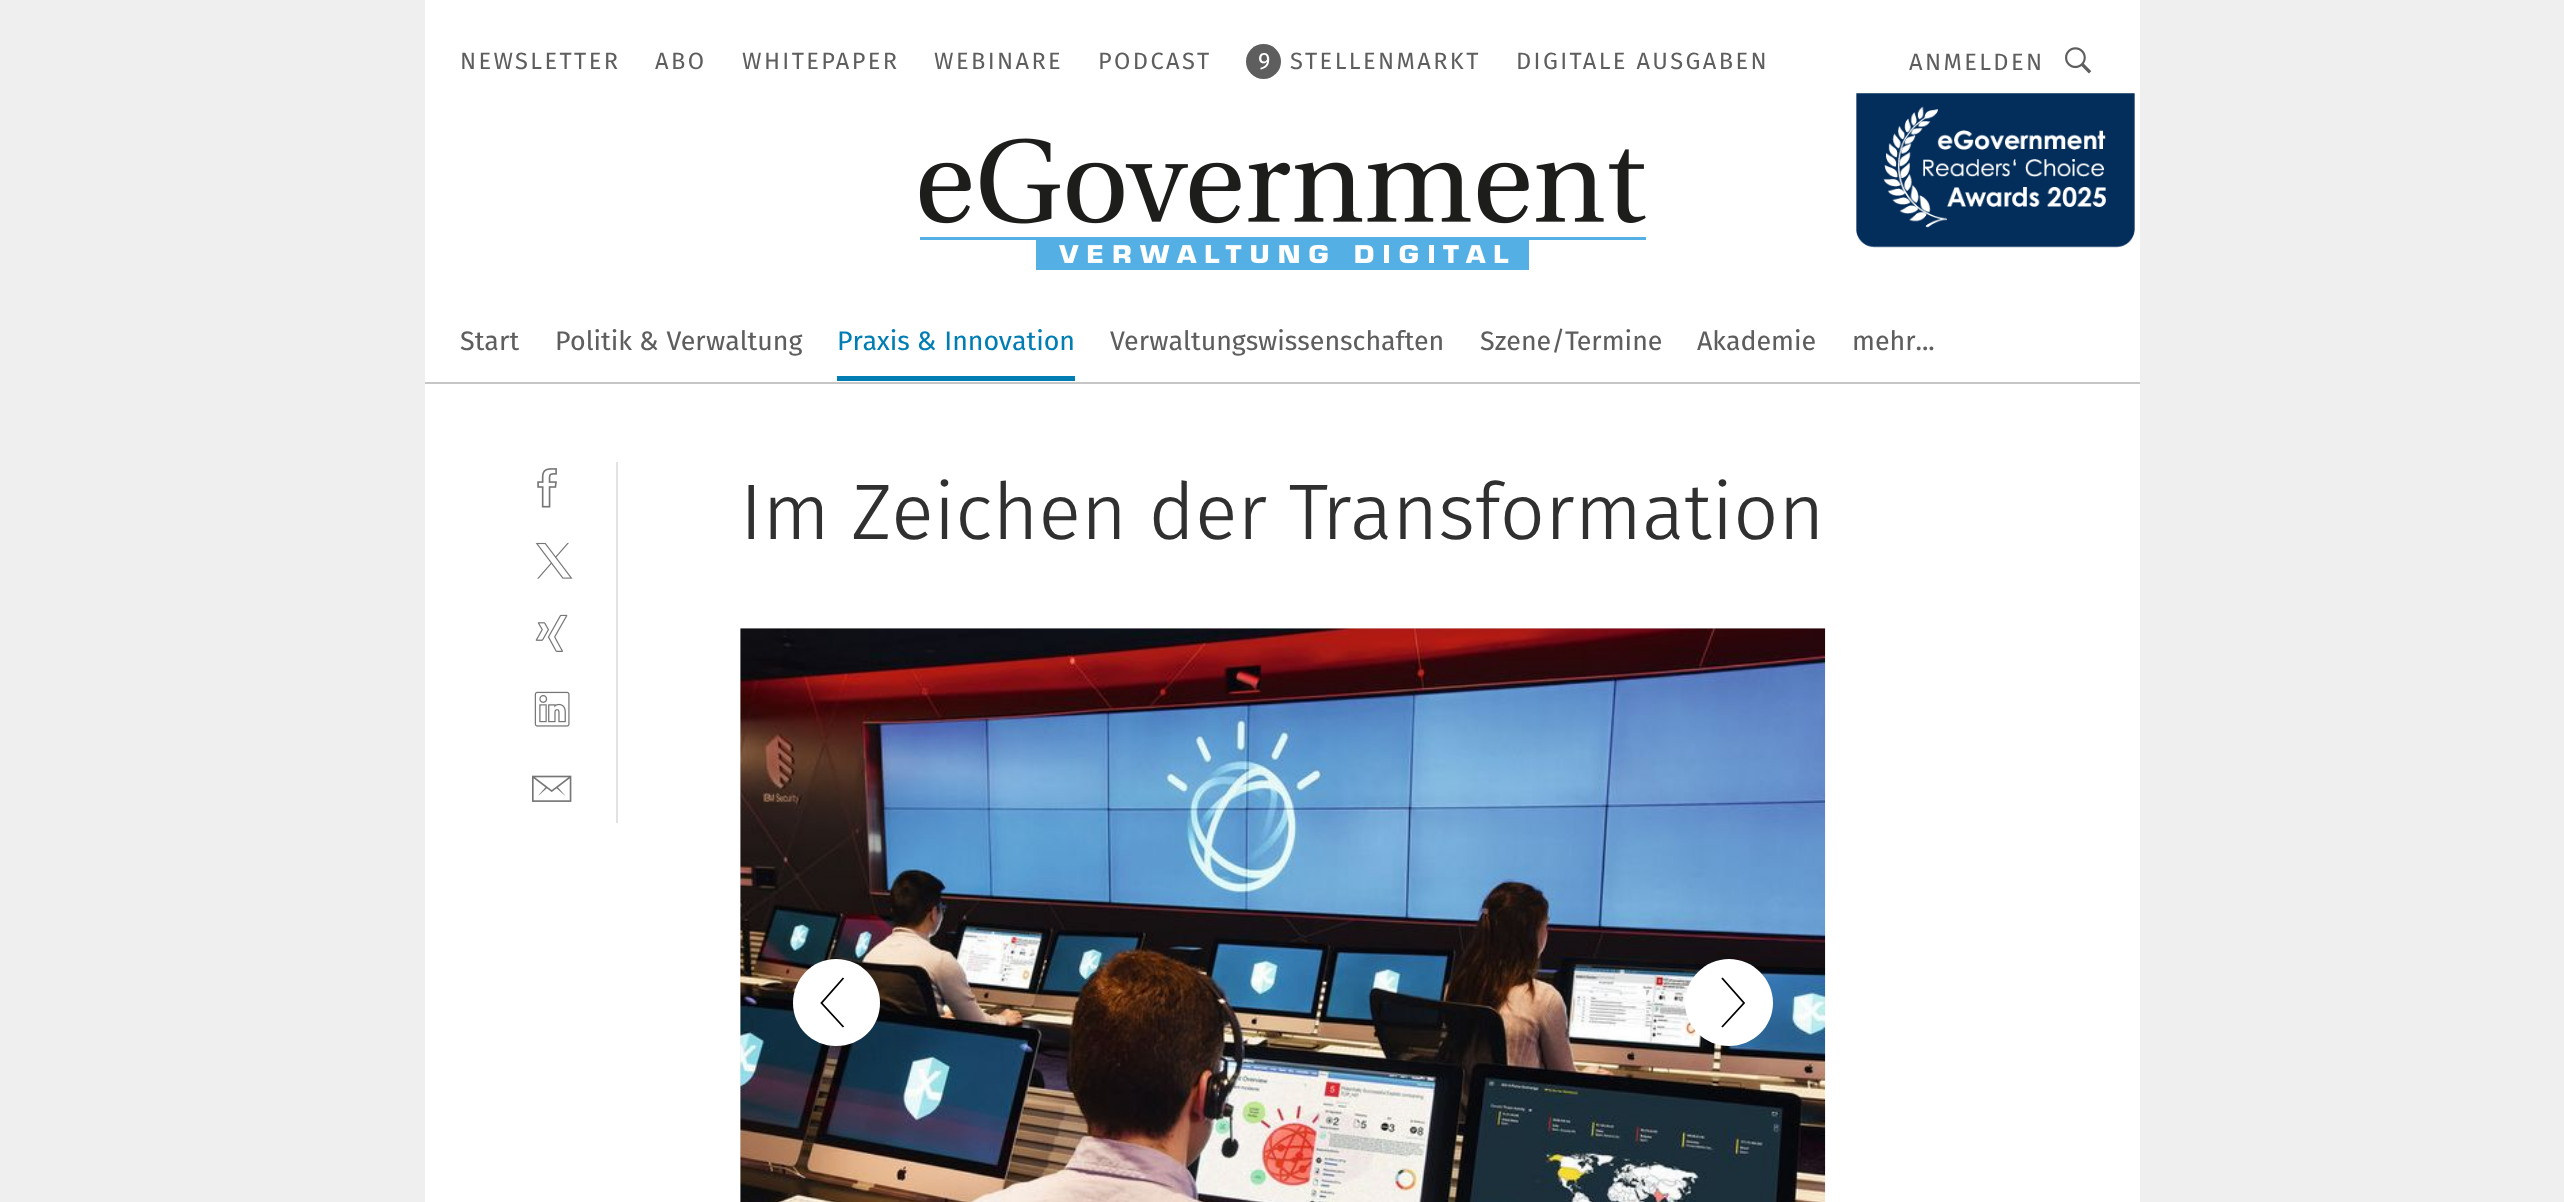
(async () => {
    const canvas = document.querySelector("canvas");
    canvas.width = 2564;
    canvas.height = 1202;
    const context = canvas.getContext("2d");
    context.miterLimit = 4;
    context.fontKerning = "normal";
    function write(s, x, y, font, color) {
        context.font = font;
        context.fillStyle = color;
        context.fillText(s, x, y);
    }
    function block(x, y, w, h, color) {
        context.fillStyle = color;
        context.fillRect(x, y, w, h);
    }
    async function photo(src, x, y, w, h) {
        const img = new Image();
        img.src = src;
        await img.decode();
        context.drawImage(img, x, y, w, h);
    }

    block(0, 0, 2564, 1202, "rgb(239, 239, 239)");
    block(425, 0, 1715, 1202, "rgb(255, 255, 255)");
    block(425, 382, 1715, 2, "rgb(198, 198, 198)");
    context.letterSpacing = "2.4px";
    write("NEWSLETTER", 460, 69, "23.6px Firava", "rgb(94, 94, 94)");
    write("ABO", 655, 69, "23.6px Firava", "rgb(94, 94, 94)");
    write("WHITEPAPER", 742, 69, "23.6px Firava", "rgb(94, 94, 94)");
    write("WEBINARE", 934, 69, "23.6px Firava", "rgb(94, 94, 94)");
    write("PODCAST", 1098, 69, "23.6px Firava", "rgb(94, 94, 94)");
    context.beginPath();
    context.arc(1263.5, 61.5, 17.5, 0, Math.PI * 2);
    context.fill();
    write("9", 1258, 69, "23.6px Firava", "rgb(255, 255, 255)");
    write("STELLENMARKT", 1290, 69, "23.6px Firava", "rgb(94, 94, 94)");
    write("DIGITALE AUSGABEN", 1516, 69, "23.6px Firava", "rgb(94, 94, 94)");
    write("ANMELDEN", 1909, 70, "23.6px Firava", "rgb(94, 94, 94)");
    await photo("media/1.png", 2065, 47, 27, 27);
    await photo("media/2.png", 919, 138, 727, 132);
    await photo("media/3.png", 1856, 93, 279, 155);
    context.letterSpacing = "0px";
    write("Start", 460, 350, "26.75px 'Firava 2'", "rgb(94, 94, 94)");
    write("Politik & Verwaltung", 555, 350, "26.75px 'Firava 2'", "rgb(94, 94, 94)");
    block(837, 376, 238, 5, "rgb(0, 126, 180)");
    write("Praxis & Innovation", 837, 350, "26.75px 'Firava 2'", "rgb(0, 126, 180)");
    write("Verwaltungswissenschaften", 1110, 350, "26.75px 'Firava 2'", "rgb(94, 94, 94)");
    write("Szene/Termine", 1480, 350, "26.75px 'Firava 2'", "rgb(94, 94, 94)");
    write("Akademie", 1697, 350, "26.75px 'Firava 2'", "rgb(94, 94, 94)");
    write("mehr...", 1852, 350, "26.75px 'Firava 2'", "rgb(94, 94, 94)");
    block(616, 462, 2, 361, "rgb(226, 226, 226)");
    await photo("media/4.png", 537, 468, 20, 40);
    await photo("media/5.png", 535, 542, 38, 37);
    await photo("media/6.png", 535, 614, 33, 38);
    await photo("media/7.png", 534, 691, 36, 36);
    await photo("media/8.png", 532, 775, 40, 27);
    write("Im Zeichen der Transformation", 740, 539, "300 78.75px Firava", "rgb(48, 48, 48)");
    block(740, 628, 1085, 574, "rgb(239, 239, 239)");
    await photo("media/9.png", 740, 628, 1086, 574);
    context.fillStyle = "rgb(255, 255, 255)";
    context.beginPath();
    context.moveTo(836, 1046);
    context.bezierCurveTo(861, 1046, 880, 1027, 880, 1003);
    context.bezierCurveTo(880, 979, 861, 959, 836, 959);
    context.bezierCurveTo(812, 959, 793, 979, 793, 1003);
    context.bezierCurveTo(793, 1027, 812, 1046, 836, 1046);
    context.fill();
    context.beginPath();
    context.moveTo(843.5, 978);
    context.lineTo(821.5, 1003);
    context.lineTo(843.5, 1027);
    context.strokeStyle = "rgb(0, 0, 0)";
    context.lineWidth = 1.8;
    context.stroke();
    context.beginPath();
    context.moveTo(1729, 959);
    context.bezierCurveTo(1705, 959, 1685, 979, 1685, 1003);
    context.bezierCurveTo(1685, 1027, 1705, 1046, 1729, 1046);
    context.bezierCurveTo(1753, 1046, 1773, 1027, 1773, 1003);
    context.bezierCurveTo(1773, 979, 1753, 959, 1729, 959);
    context.fill();
    context.beginPath();
    context.moveTo(1722, 1027);
    context.lineTo(1744, 1003);
    context.lineTo(1722, 978);
    context.stroke();
})();
